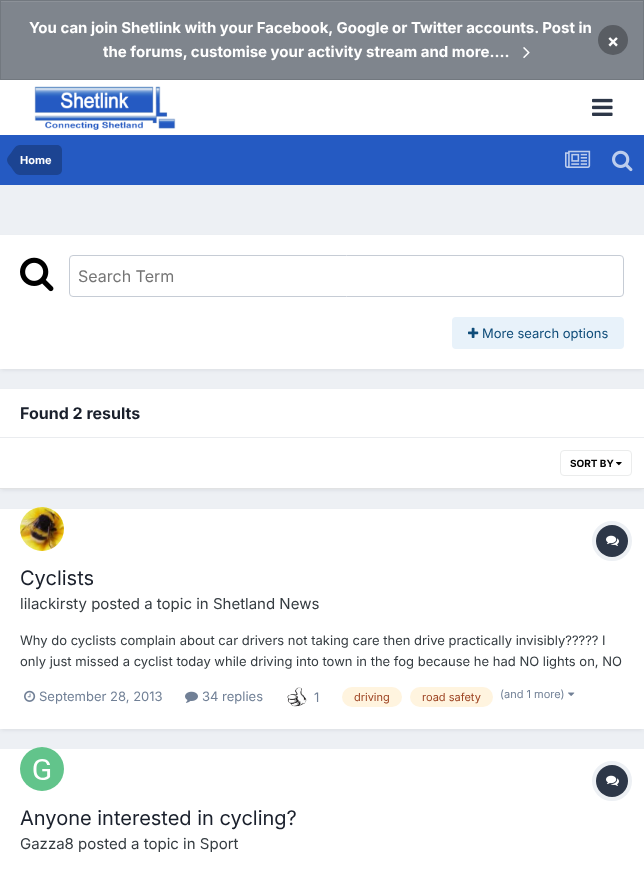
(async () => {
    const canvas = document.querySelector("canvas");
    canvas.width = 644;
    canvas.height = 873;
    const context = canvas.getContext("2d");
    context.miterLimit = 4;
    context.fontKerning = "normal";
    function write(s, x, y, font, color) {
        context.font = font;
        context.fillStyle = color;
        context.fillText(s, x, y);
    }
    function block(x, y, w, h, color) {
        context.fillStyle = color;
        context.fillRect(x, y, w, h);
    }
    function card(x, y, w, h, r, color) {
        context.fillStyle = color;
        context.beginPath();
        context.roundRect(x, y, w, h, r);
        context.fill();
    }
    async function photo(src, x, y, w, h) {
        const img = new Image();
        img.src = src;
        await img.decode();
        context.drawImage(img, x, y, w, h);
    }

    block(0, 0, 644, 873, "rgb(237, 240, 244)");
    block(1, 2, 642, 77, "rgb(127, 133, 141)");
    block(1, 1, 642, 1, "rgb(140, 145, 152)");
    context.strokeStyle = "rgb(114, 120, 127)";
    context.strokeRect(0.5, 0.5, 643, 79);
    write("You can join Shetlink with your Facebook, Google or Twitter accounts. Post in", 29, 33, "bold 15px Inter", "rgb(255, 255, 255)");
    write("the forums, customise your activity stream and more....", 103, 57, "bold 15px Inter", "rgb(255, 255, 255)");
    await photo("media/1.png", 523, 47, 7, 12);
    context.fillStyle = "rgb(89, 93, 99)";
    context.beginPath();
    context.arc(613, 40, 15, 0, Math.PI * 2);
    context.fill();
    write("×", 607, 47, "bold 18px Inter", "rgb(255, 255, 255)");
    block(0, 80, 644, 55, "rgb(255, 255, 255)");
    await photo("media/2.png", 34, 86, 142, 44);
    await photo("media/3.png", 592, 98, 21, 18);
    block(0, 135, 644, 50, "rgb(37, 90, 194)");
    context.fillStyle = "rgb(28, 68, 146)";
    context.beginPath();
    context.roundRect(20, 145, 42, 30, [0, 5, 5, 0]);
    context.fill();
    context.beginPath();
    context.moveTo(20, 160);
    context.lineTo(20, 175);
    context.bezierCurveTo(15.5, 175, 13.5, 170.5, 11, 167);
    context.bezierCurveTo(9.5, 165, 7, 163, 7, 160);
    context.closePath();
    context.moveTo(20, 160);
    context.lineTo(7, 160);
    context.bezierCurveTo(7, 157, 9.5, 155, 11, 153);
    context.bezierCurveTo(13.5, 149.5, 15.5, 145, 20, 145);
    context.closePath();
    context.fill();
    write("Home", 20, 164, "bold 11px Inter", "rgb(255, 255, 255)");
    await photo("media/4.png", 565, 150, 26, 18);
    await photo("media/5.png", 612, 150, 21, 22);
    context.fillStyle = "rgba(45, 55, 72, 0.1)";
    context.filter = "blur(2px)";
    context.beginPath();
    context.rect(1, 238, 642, 132);
    context.fill();
    context.filter = "none";
    block(0, 235, 644, 134, "rgb(255, 255, 255)");
    await photo("media/6.png", 20, 257, 34, 35);
    context.beginPath();
    context.roundRect(69.5, 255.5, 554, 41, 3.5);
    context.strokeStyle = "rgb(198, 204, 213)";
    context.stroke();
    write("Search Term", 78, 282, "16px Inter", "rgb(117, 117, 117)");
    card(452, 317, 172, 32, 4, "rgb(232, 242, 250)");
    await photo("media/7.png", 468, 327, 11, 11);
    write("More search options", 482, 338, "13px Inter", "rgb(14, 76, 121)");
    context.fillStyle = "rgba(45, 55, 72, 0.1)";
    context.filter = "blur(2px)";
    context.beginPath();
    context.rect(1, 392, 642, 98);
    context.fill();
    context.filter = "none";
    block(0, 389, 644, 99, "rgb(255, 255, 255)");
    block(0, 437, 644, 1, "rgb(234, 236, 239)");
    write("Found 2 results", 20, 419, "bold 16px Inter", "rgb(26, 32, 44)");
    block(0, 488, 644, 1, "rgb(225, 226, 227)");
    await photo("media/8.png", 616, 462, 6, 4);
    context.beginPath();
    context.roundRect(560.5, 450.5, 71, 25, 3.5);
    context.strokeStyle = "rgb(235, 236, 236)";
    context.stroke();
    write("SORT BY", 570, 467, "bold 10px Inter", "rgb(0, 0, 0)");
    context.fillStyle = "rgba(45, 55, 72, 0.1)";
    context.filter = "blur(2px)";
    context.beginPath();
    context.rect(1, 512, 642, 218);
    context.fill();
    context.filter = "none";
    block(0, 509, 644, 220, "rgb(255, 255, 255)");
    context.beginPath();
    context.arc(42, 529, 22, 0, Math.PI * 2);
    context.fill();
    await photo("media/9.png", 20, 507, 44, 44);
    context.beginPath();
    context.arc(612, 541, 18, 0, Math.PI * 2);
    context.strokeStyle = "rgb(237, 240, 244)";
    context.lineWidth = 4;
    context.stroke();
    context.fillStyle = "rgb(45, 55, 72)";
    context.beginPath();
    context.arc(612, 541, 16, 0, Math.PI * 2);
    context.fill();
    await photo("media/10.png", 606, 535, 13, 11);
    write("Cyclists", 20, 585, "20px Inter", "rgb(26, 32, 44)");
    write("lilackirsty posted a topic in Shetland News", 20, 609, "15px Inter", "rgb(53, 60, 65)");
    write("Why do cyclists complain about car drivers not taking care then drive practically invisibly????? I", 20, 645, "13px Inter", "rgb(53, 60, 65)");
    write("only just missed a cyclist today while driving into town in the fog because he had NO lights on, NO", 20, 666, "13px Inter", "rgb(53, 60, 65)");
    await photo("media/11.png", 24, 690, 12, 12);
    write("September 28, 2013", 39, 701, "13px Inter", "rgb(113, 128, 150)");
    await photo("media/12.png", 185, 691, 13, 12);
    write("34 replies", 202, 701, "13px Inter", "rgb(113, 128, 150)");
    await photo("media/13.png", 287, 687, 20, 20);
    write("1", 314, 702, "13px Inter", "rgb(113, 128, 150)");
    card(342, 687, 60, 20, 10, "rgb(255, 244, 223)");
    write("driving", 354, 701, "11px Inter", "rgb(156, 66, 33)");
    card(410, 687, 83, 20, 10, "rgb(255, 244, 223)");
    write("road safety", 422, 701, "11px Inter", "rgb(156, 66, 33)");
    write("(and 1 more)", 500, 698, "11px Inter", "rgb(113, 128, 150)");
    await photo("media/14.png", 568, 692, 7, 4);
    block(0, 749, 644, 124, "rgb(255, 255, 255)");
    context.beginPath();
    context.arc(42, 769, 22, 0, Math.PI * 2);
    context.fill();
    await photo("media/15.png", 20, 747, 44, 44);
    context.beginPath();
    context.arc(612, 781, 18, 0, Math.PI * 2);
    context.stroke();
    context.fillStyle = "rgb(45, 55, 72)";
    context.beginPath();
    context.arc(612, 781, 16, 0, Math.PI * 2);
    context.fill();
    await photo("media/10.png", 606, 775, 13, 11);
    write("Anyone interested in cycling?", 20, 825, "20px Inter", "rgb(26, 32, 44)");
    write("Gazza8 posted a topic in Sport", 20, 849, "15px Inter", "rgb(53, 60, 65)");
})();
